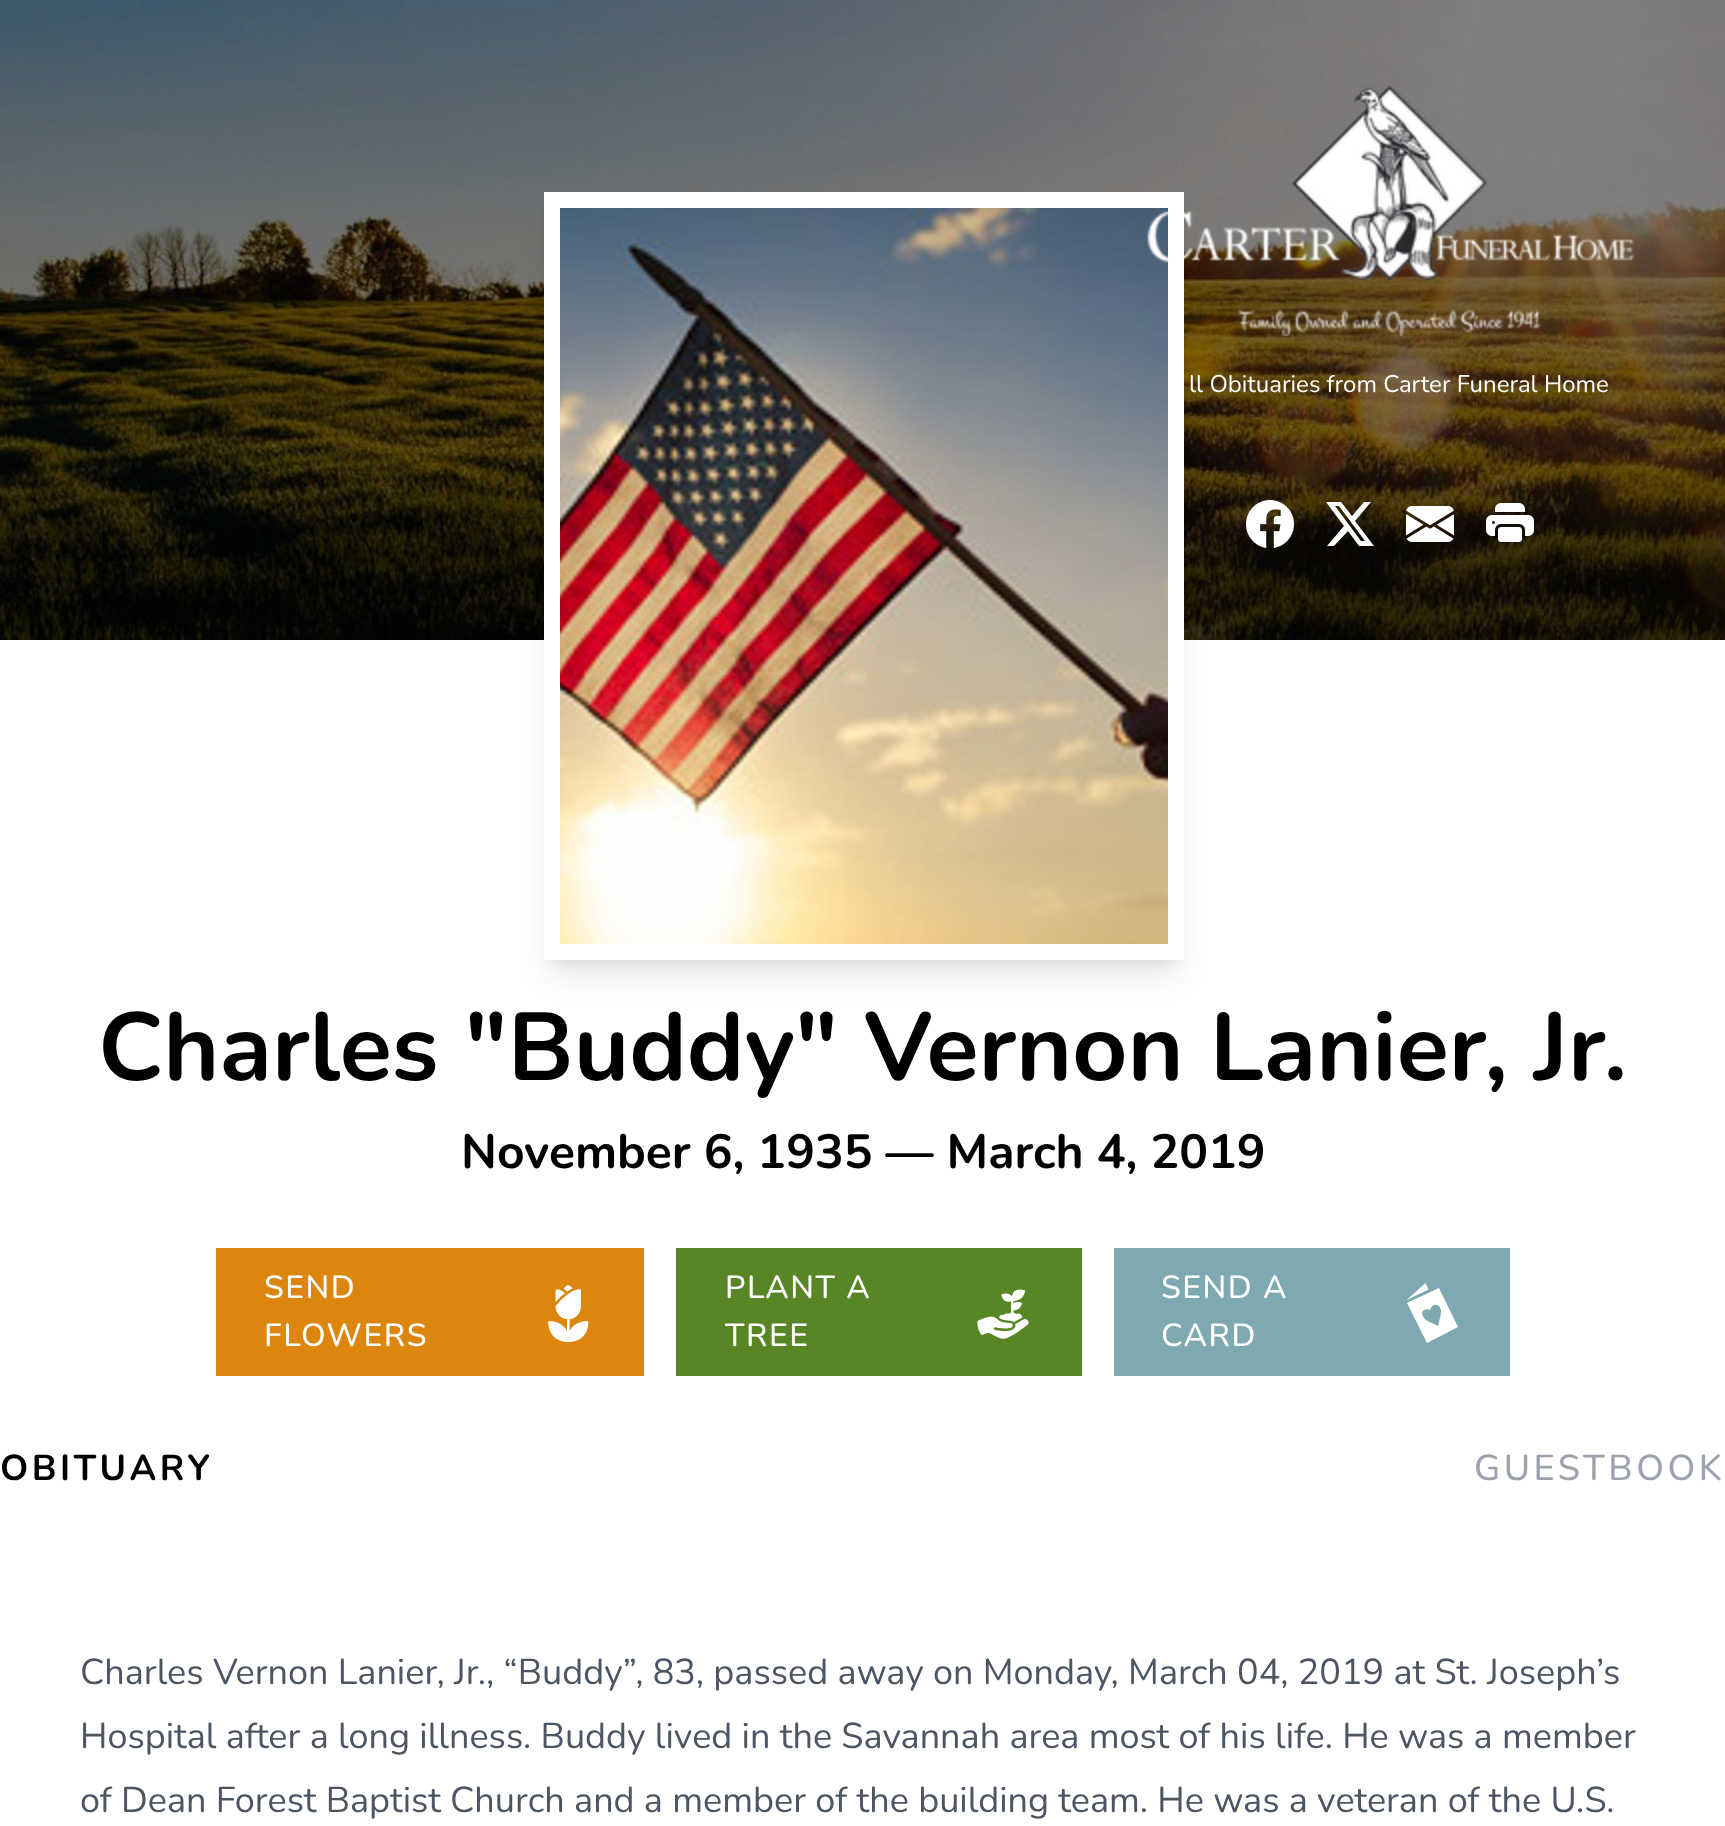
(async () => {
    const canvas = document.querySelector("canvas");
    canvas.width = 1725;
    canvas.height = 1826;
    const context = canvas.getContext("2d");
    context.miterLimit = 4;
    context.fontKerning = "normal";
    function write(s, x, y, font, color) {
        context.font = font;
        context.fillStyle = color;
        context.fillText(s, x, y);
    }
    function block(x, y, w, h, color) {
        context.fillStyle = color;
        context.fillRect(x, y, w, h);
    }
    async function photo(src, x, y, w, h) {
        const img = new Image();
        img.src = src;
        await img.decode();
        context.drawImage(img, x, y, w, h);
    }

    block(0, 0, 1725, 1826, "rgb(255, 255, 255)");
    await photo("media/1.png", 0, 0, 1725, 640);
    context.fillStyle = "rgba(0, 0, 0, 0.1)";
    context.filter = "blur(6px)";
    context.beginPath();
    context.rect(552, 208, 624, 752);
    context.fill();
    context.filter = "none";
    context.filter = "blur(15px)";
    context.beginPath();
    context.rect(550, 218, 628, 756);
    context.fill();
    context.filter = "none";
    context.strokeStyle = "rgb(255, 255, 255)";
    context.lineWidth = 16;
    context.strokeRect(552, 200, 624, 752);
    await photo("media/6.png", 560, 208, 608, 736);
    await photo("media/2.png", 1147, 85, 488, 251);
    write("ll Obituaries from Carter Funeral Home", 1189, 392, "24px Nunito", "rgb(255, 255, 255)");
    await photo("media/3.png", 1246, 500, 48, 48);
    context.beginPath();
    context.moveTo(1364, 502);
    context.lineTo(1371, 502);
    context.lineTo(1355, 521);
    context.lineTo(1374, 546);
    context.lineTo(1359, 546);
    context.lineTo(1348, 531);
    context.lineTo(1334, 546);
    context.lineTo(1327, 546);
    context.lineTo(1344, 526);
    context.lineTo(1326, 502);
    context.lineTo(1341, 502);
    context.lineTo(1352, 516);
    context.closePath();
    context.moveTo(1361, 541);
    context.lineTo(1365, 541);
    context.lineTo(1339, 506);
    context.lineTo(1335, 506);
    context.closePath();
    context.fill();
    await photo("media/4.png", 1406, 506, 48, 36);
    await photo("media/5.png", 1486, 503, 48, 39);
    write("Charles \"Buddy\" Vernon Lanier, Jr.", 98, 1080, "bold 96px Nunito", "rgb(0, 0, 0)");
    write("November 6, 1935 — March 4, 2019", 461, 1168, "bold 48px Nunito", "rgb(0, 0, 0)");
    block(216, 1248, 428, 128, "rgb(220, 134, 13)");
    context.letterSpacing = "1.5px";
    write("SEND", 264, 1298, "500 32px Nunito", "rgb(255, 255, 255)");
    write("FLOWERS", 264, 1346, "500 32px Nunito", "rgb(255, 255, 255)");
    await photo("media/7.png", 548, 1285, 41, 58);
    block(676, 1248, 406, 128, "rgb(88, 134, 36)");
    write("PLANT A", 725, 1298, "500 32px Nunito", "rgb(255, 255, 255)");
    write("TREE", 725, 1346, "500 32px Nunito", "rgb(255, 255, 255)");
    await photo("media/8.png", 977, 1289, 52, 50);
    block(1114, 1248, 396, 128, "rgb(126, 169, 176)");
    write("SEND A", 1161, 1298, "500 32px Nunito", "rgb(255, 255, 255)");
    write("CARD", 1161, 1346, "500 32px Nunito", "rgb(255, 255, 255)");
    context.beginPath();
    context.moveTo(1439, 1288);
    context.lineTo(1407, 1303);
    context.lineTo(1427, 1343);
    context.lineTo(1458, 1327);
    context.closePath();
    context.moveTo(1423, 1316);
    context.bezierCurveTo(1420, 1310, 1426, 1308, 1430, 1310);
    context.bezierCurveTo(1432, 1303, 1440, 1303, 1441, 1311);
    context.bezierCurveTo(1441, 1316, 1439, 1321, 1438, 1326);
    context.bezierCurveTo(1428, 1321, 1425, 1321, 1423, 1316);
    context.closePath();
    context.fill();
    context.beginPath();
    context.moveTo(1428.5, 1289.5);
    context.lineTo(1406.5, 1300);
    context.lineTo(1425.5, 1283);
    context.closePath();
    context.fill();
    context.letterSpacing = "3.5px";
    write("OBITUARY", 0, 1480, "bold 36px Nunito", "rgb(0, 0, 0)");
    write("GUESTBOOK", 1474, 1480, "500 36px Nunito", "rgb(156, 163, 175)");
    context.letterSpacing = "0px";
    write("Charles Vernon Lanier, Jr., “Buddy”, 83, passed away on Monday, March 04, 2019 at St. Joseph’s", 80, 1684, "36px Nunito", "rgb(75, 85, 99)");
    write("Hospital after a long illness. Buddy lived in the Savannah area most of his life. He was a member", 80, 1748, "36px Nunito", "rgb(75, 85, 99)");
    write("of Dean Forest Baptist Church and a member of the building team. He was a veteran of the U.S.", 80, 1812, "36px Nunito", "rgb(75, 85, 99)");
})();
